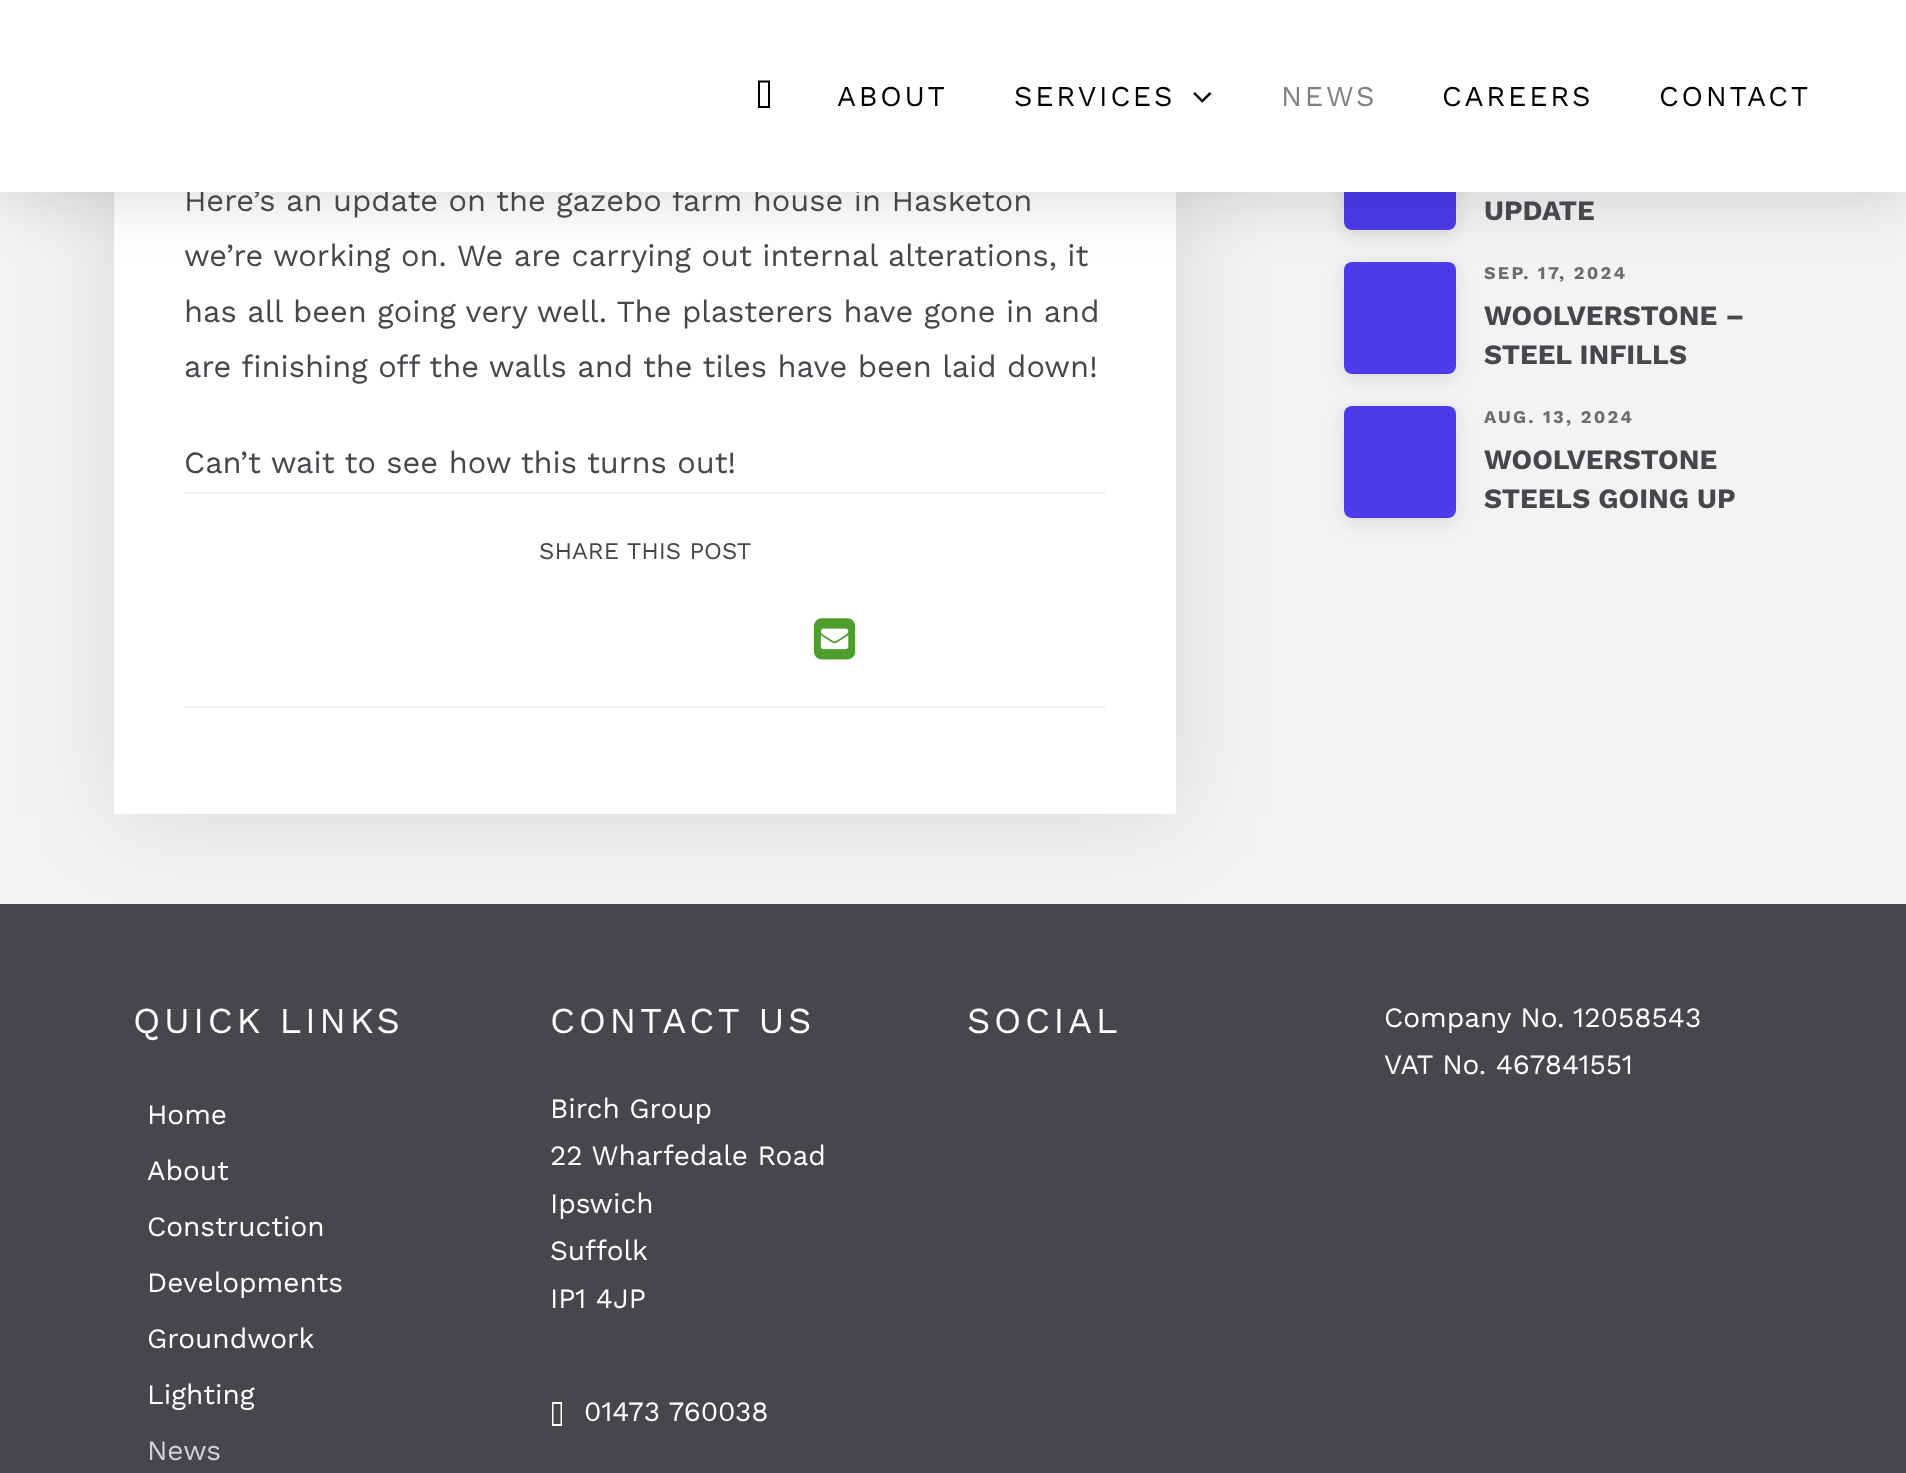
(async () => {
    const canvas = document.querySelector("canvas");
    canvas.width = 1906;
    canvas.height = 1473;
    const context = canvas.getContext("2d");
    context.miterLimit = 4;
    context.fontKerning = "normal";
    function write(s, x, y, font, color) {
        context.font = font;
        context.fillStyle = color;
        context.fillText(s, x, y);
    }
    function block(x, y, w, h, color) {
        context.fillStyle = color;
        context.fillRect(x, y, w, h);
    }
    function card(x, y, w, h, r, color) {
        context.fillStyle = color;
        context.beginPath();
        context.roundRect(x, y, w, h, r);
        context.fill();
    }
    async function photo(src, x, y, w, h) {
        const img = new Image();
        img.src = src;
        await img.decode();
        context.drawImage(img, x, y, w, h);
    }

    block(0, 0, 1906, 1473, "rgb(243, 243, 243)");
    context.fillStyle = "rgba(0, 0, 0, 0.1)";
    context.filter = "blur(49px)";
    context.beginPath();
    context.rect(116, -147, 1062, 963);
    context.fill();
    context.filter = "none";
    block(114, 192, 1062, 622, "rgb(255, 255, 255)");
    context.fillStyle = "rgba(0, 0, 0, 0.11)";
    context.filter = "blur(9px)";
    context.beginPath();
    context.roundRect(1344, 122, 112, 112, 8);
    context.fill();
    context.filter = "none";
    card(1344, 118, 112, 112, 8, "rgb(76, 59, 233)");
    context.fillStyle = "rgba(0, 0, 0, 0.11)";
    context.filter = "blur(9px)";
    context.beginPath();
    context.roundRect(1344, 266, 112, 112, 8);
    context.fill();
    context.filter = "none";
    card(1344, 262, 112, 112, 8, "rgb(76, 59, 233)");
    context.fillStyle = "rgba(0, 0, 0, 0.15)";
    context.filter = "blur(32px)";
    context.beginPath();
    context.rect(0, 4, 1906, 192);
    context.fill();
    context.filter = "none";
    write("Here’s an update on the gazebo farm house in Hasketon", 184, 211, "30.8px Work Sans", "rgb(70, 70, 76)");
    block(0, 0, 1906, 192, "rgb(255, 255, 255)");
    context.fillStyle = "rgb(0, 0, 0)";
    context.beginPath();
    context.moveTo(760, 106);
    context.lineTo(760, 82.5);
    context.lineTo(768, 82.5);
    context.lineTo(768, 106);
    context.closePath();
    context.moveTo(758, 108);
    context.lineTo(770, 108);
    context.lineTo(770, 80.5);
    context.lineTo(758, 80.5);
    context.closePath();
    context.fill();
    context.letterSpacing = "2.75px";
    write("ABOUT", 837, 106, "28.75px Work Sans", "rgb(0, 0, 0)");
    write("SERVICES", 1014, 106, "28.75px Work Sans", "rgb(0, 0, 0)");
    await photo("media/1.png", 1193, 92, 19, 11);
    write("NEWS", 1281, 106, "28.75px Work Sans", "rgb(128, 128, 128)");
    write("CAREERS", 1442, 106, "28.75px Work Sans", "rgb(0, 0, 0)");
    write("CONTACT", 1659, 106, "28.75px Work Sans", "rgb(0, 0, 0)");
    context.letterSpacing = "0px";
    write("we’re working on.", 184, 266, "30.8px Work Sans", "rgb(70, 70, 76)");
    write("We are carrying out internal alterations, it", 457, 266, "30.8px Work Sans", "rgb(70, 70, 76)");
    write("has all been going very well. The plasterers have gone in and", 184, 322, "30.8px Work Sans", "rgb(70, 70, 76)");
    write("are finishing off the walls and the tiles have been laid down!", 184, 377, "30.8px Work Sans", "rgb(70, 70, 76)");
    write("Can’t wait to see how this turns out!", 184, 473, "30.8px Work Sans", "rgb(70, 70, 76)");
    block(184, 492, 922, 2, "rgb(242, 242, 242)");
    block(184, 706, 922, 2, "rgb(242, 242, 242)");
    write("SHARE THIS POST", 539, 559, "24px Work Sans", "rgb(70, 70, 76)");
    await photo("media/2.png", 814, 618, 42, 42);
    write("UPDATE", 1484, 220, "bold 28px Work Sans", "rgb(70, 70, 76)");
    context.letterSpacing = "2.25px";
    write("SEP. 17, 2024", 1484, 279, "bold 18px Work Sans", "rgb(109, 109, 109)");
    context.letterSpacing = "0px";
    write("WOOLVERSTONE –", 1484, 325, "bold 28px Work Sans", "rgb(70, 70, 76)");
    write("STEEL INFILLS", 1484, 364, "bold 28px Work Sans", "rgb(70, 70, 76)");
    context.fillStyle = "rgba(0, 0, 0, 0.11)";
    context.filter = "blur(9px)";
    context.beginPath();
    context.roundRect(1344, 410, 112, 112, 8);
    context.fill();
    context.filter = "none";
    card(1344, 406, 112, 112, 8, "rgb(76, 59, 233)");
    context.letterSpacing = "2.25px";
    write("AUG. 13, 2024", 1484, 423, "bold 18px Work Sans", "rgb(109, 109, 109)");
    context.letterSpacing = "0px";
    write("WOOLVERSTONE", 1484, 469, "bold 28px Work Sans", "rgb(70, 70, 76)");
    write("STEELS GOING UP", 1484, 508, "bold 28px Work Sans", "rgb(70, 70, 76)");
    block(0, 904, 1906, 569, "rgb(70, 70, 76)");
    context.letterSpacing = "3.6px";
    write("QUICK LINKS", 133, 1033, "36.5px Work Sans", "rgb(255, 255, 255)");
    context.letterSpacing = "0px";
    write("Home", 147, 1124, "28px Work Sans", "rgb(255, 255, 255)");
    write("About", 147, 1180, "28px Work Sans", "rgb(255, 255, 255)");
    write("Construction", 147, 1236, "28px Work Sans", "rgb(255, 255, 255)");
    write("Developments", 147, 1292, "28px Work Sans", "rgb(255, 255, 255)");
    write("Groundwork", 147, 1348, "28px Work Sans", "rgb(255, 255, 255)");
    write("Lighting", 147, 1404, "28px Work Sans", "rgb(255, 255, 255)");
    write("News", 147, 1460, "28px Work Sans", "rgb(209, 209, 210)");
    context.letterSpacing = "3.6px";
    write("CONTACT US", 550, 1033, "36.5px Work Sans", "rgb(255, 255, 255)");
    context.letterSpacing = "0px";
    write("Birch Group", 550, 1118, "28px Work Sans", "rgb(255, 255, 255)");
    write("22 Wharfedale Road", 550, 1165, "28px Work Sans", "rgb(255, 255, 255)");
    write("Ipswich", 550, 1213, "28px Work Sans", "rgb(255, 255, 255)");
    write("Suffolk", 550, 1260, "28px Work Sans", "rgb(255, 255, 255)");
    write("IP1 4JP", 550, 1308, "28px Work Sans", "rgb(255, 255, 255)");
    context.beginPath();
    context.moveTo(553.5, 1424);
    context.lineTo(553.5, 1404);
    context.lineTo(560.5, 1404);
    context.lineTo(560.5, 1424);
    context.closePath();
    context.moveTo(552, 1426);
    context.lineTo(562, 1426);
    context.lineTo(562, 1402);
    context.lineTo(552, 1402);
    context.closePath();
    context.fill();
    write("01473 760038", 584, 1421, "28px Work Sans", "rgb(255, 255, 255)");
    context.letterSpacing = "3.6px";
    write("SOCIAL", 967, 1033, "36.5px Work Sans", "rgb(255, 255, 255)");
    context.letterSpacing = "0px";
    write("Company No. 12058543", 1384, 1027, "28px Work Sans", "rgb(255, 255, 255)");
    write("VAT No. 467841551", 1384, 1074, "28px Work Sans", "rgb(255, 255, 255)");
})();
